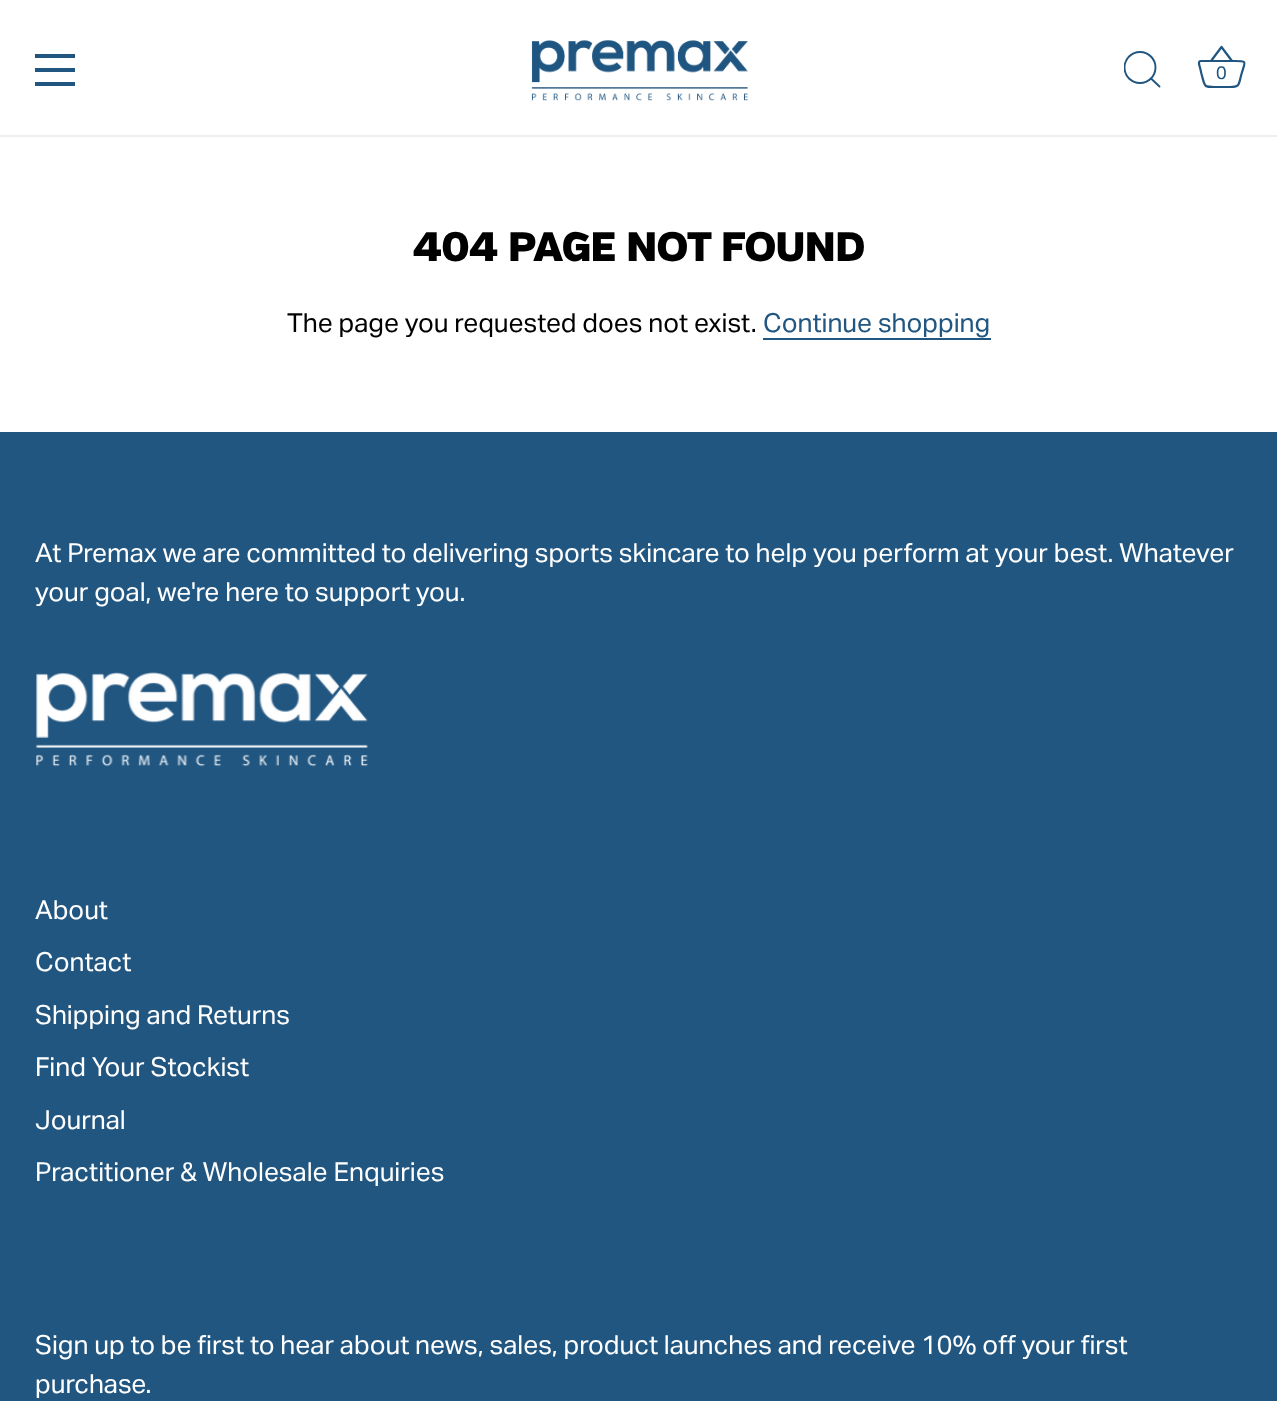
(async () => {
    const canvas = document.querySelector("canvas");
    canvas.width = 1277;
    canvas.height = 1401;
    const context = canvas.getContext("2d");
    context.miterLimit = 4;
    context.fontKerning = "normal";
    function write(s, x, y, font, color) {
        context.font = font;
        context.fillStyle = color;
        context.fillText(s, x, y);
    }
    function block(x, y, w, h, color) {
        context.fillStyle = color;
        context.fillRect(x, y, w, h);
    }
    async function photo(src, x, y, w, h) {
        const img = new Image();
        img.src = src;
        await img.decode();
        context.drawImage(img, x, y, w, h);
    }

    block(0, 0, 1277, 1401, "rgb(255, 255, 255)");
    block(0, 135, 1277, 2, "rgb(238, 238, 238)");
    block(35, 54, 40, 4, "rgb(33, 86, 129)");
    block(35, 68, 40, 4, "rgb(33, 86, 129)");
    block(35, 82, 40, 4, "rgb(33, 86, 129)");
    await photo("media/1.png", 531, 40, 217, 61);
    context.save();
    context.beginPath();
    context.rect(1124, 51, 38, 38);
    context.clip();
    context.beginPath();
    context.arc(1140, 67.5, 15.5, 0, Math.PI * 2);
    context.strokeStyle = "rgb(33, 86, 129)";
    context.lineWidth = 1.9;
    context.stroke();
    context.restore();
    context.beginPath();
    context.moveTo(1159.5, 86.5);
    context.lineTo(1151, 78.5);
    context.strokeStyle = "rgb(33, 86, 129)";
    context.lineWidth = 1.9;
    context.lineCap = "round";
    context.lineJoin = "round";
    context.stroke();
    context.beginPath();
    context.moveTo(1201, 61);
    context.bezierCurveTo(1197.5, 61, 1199.5, 66, 1200, 67.5);
    context.lineTo(1201.5, 74);
    context.bezierCurveTo(1205.5, 88, 1203, 87, 1217.5, 87);
    context.lineTo(1230, 87);
    context.bezierCurveTo(1240.5, 87, 1238.5, 84.5, 1241.5, 74);
    context.bezierCurveTo(1245, 61.5, 1248, 61, 1235, 61);
    context.lineTo(1201, 61);
    context.moveTo(1211, 61);
    context.lineTo(1221.5, 47);
    context.lineTo(1232, 61);
    context.lineWidth = 2.2;
    context.lineCap = "butt";
    context.stroke();
    write("0", 1216, 79, "18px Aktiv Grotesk", "rgb(33, 86, 129)");
    context.letterSpacing = "-0.6px";
    write("404 PAGE NOT FOUND", 413, 261, "900 41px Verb", "rgb(0, 0, 0)");
    context.letterSpacing = "0px";
    write("The page you requested does not exist.", 287, 332, "26.25px Aktiv Grotesk", "rgb(0, 0, 0)");
    write("Continue shopping", 763, 332, "26.25px Aktiv Grotesk", "rgb(33, 86, 129)");
    block(763, 338, 228, 2, "rgb(33, 86, 129)");
    block(0, 432, 1277, 969, "rgb(33, 86, 129)");
    write("At Premax we are committed to delivering sports skincare to help you perform at your best. Whatever", 35, 562, "26.25px Aktiv Grotesk", "rgb(255, 255, 255)");
    write("your goal, we're here to support you.", 35, 601, "26.25px Aktiv Grotesk", "rgb(255, 255, 255)");
    await photo("media/2.png", 36, 672, 332, 95);
    write("About", 35, 919, "26.25px Aktiv Grotesk", "rgb(255, 255, 255)");
    write("Contact", 35, 971, "26.25px Aktiv Grotesk", "rgb(255, 255, 255)");
    write("Shipping and Returns", 35, 1024, "26.25px Aktiv Grotesk", "rgb(255, 255, 255)");
    write("Find Your Stockist", 35, 1076, "26.25px Aktiv Grotesk", "rgb(255, 255, 255)");
    write("Journal", 35, 1129, "26.25px Aktiv Grotesk", "rgb(255, 255, 255)");
    write("Practitioner & Wholesale Enquiries", 35, 1181, "26.25px Aktiv Grotesk", "rgb(255, 255, 255)");
    write("Sign up to be first to hear about news, sales, product launches and receive 10% off your first", 35, 1354, "26.25px Aktiv Grotesk", "rgb(255, 255, 255)");
    write("purchase.", 35, 1393, "26.25px Aktiv Grotesk", "rgb(255, 255, 255)");
})();
